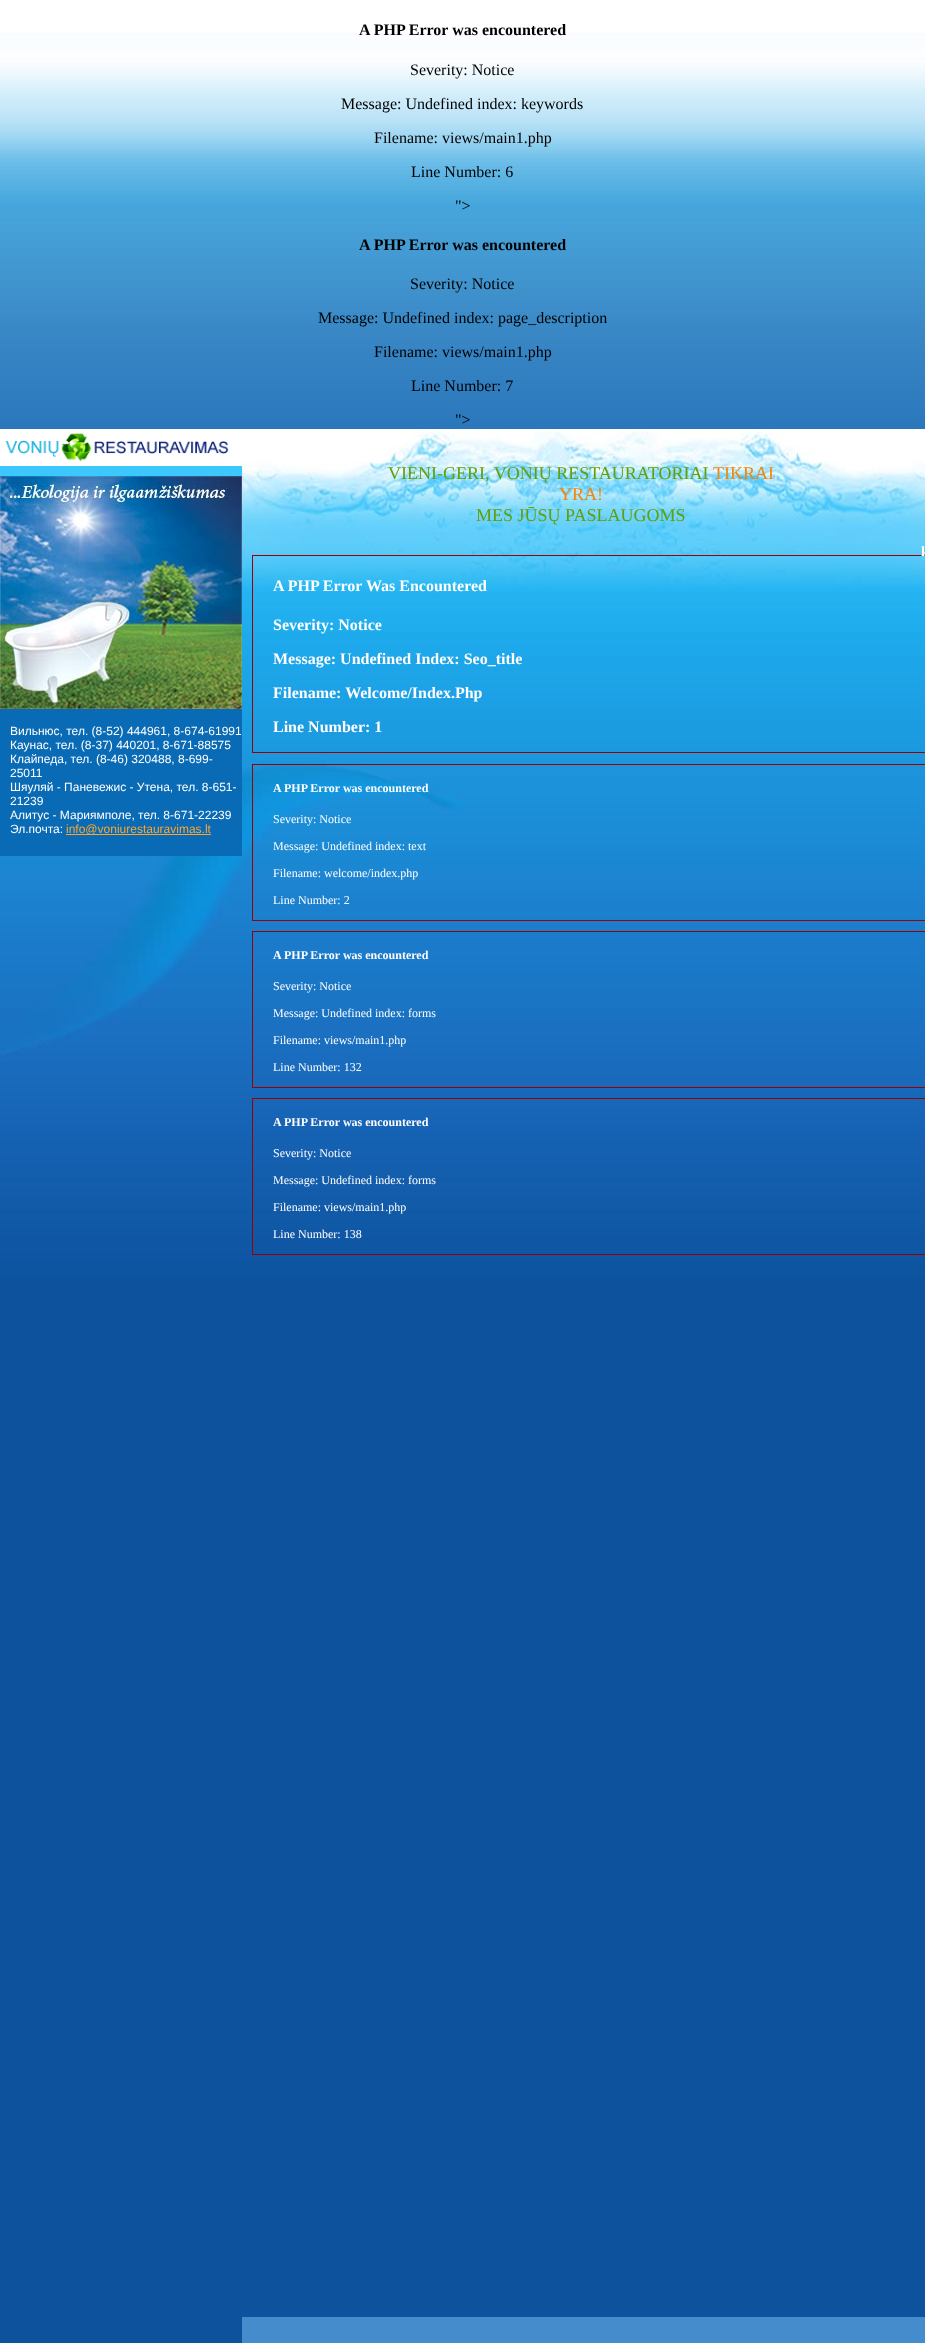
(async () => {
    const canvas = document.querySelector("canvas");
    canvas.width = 925;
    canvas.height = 2343;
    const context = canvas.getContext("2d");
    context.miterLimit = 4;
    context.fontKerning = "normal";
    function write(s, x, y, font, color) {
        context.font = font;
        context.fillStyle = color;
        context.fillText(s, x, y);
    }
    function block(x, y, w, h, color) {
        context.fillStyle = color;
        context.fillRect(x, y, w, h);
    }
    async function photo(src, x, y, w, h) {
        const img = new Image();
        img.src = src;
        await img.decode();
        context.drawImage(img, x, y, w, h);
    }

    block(0, 0, 925, 2343, "rgb(255, 255, 255)");
    await photo("media/1.png", 0, 0, 925, 429);
    write("A PHP Error was encountered", 359, 35, "bold 16px Liberation Serif", "rgb(0, 0, 0)");
    write("Severity: Notice", 410, 75, "16px Liberation Serif", "rgb(0, 0, 0)");
    write("Message: Undefined index: keywords", 341, 109, "16px Liberation Serif", "rgb(0, 0, 0)");
    write("Filename: views/main1.php", 374, 143, "16px Liberation Serif", "rgb(0, 0, 0)");
    write("Line Number: 6", 411, 177, "16px Liberation Serif", "rgb(0, 0, 0)");
    write("\">", 455, 211, "16px Liberation Serif", "rgb(0, 0, 0)");
    write("A PHP Error was encountered", 359, 250, "bold 16px Liberation Serif", "rgb(0, 0, 0)");
    write("Severity: Notice", 410, 289, "16px Liberation Serif", "rgb(0, 0, 0)");
    write("Message: Undefined index: page_description", 318, 323, "16px Liberation Serif", "rgb(0, 0, 0)");
    write("Filename: views/main1.php", 374, 357, "16px Liberation Serif", "rgb(0, 0, 0)");
    write("Line Number: 7", 411, 391, "16px Liberation Serif", "rgb(0, 0, 0)");
    write("\">", 455, 425, "16px Liberation Serif", "rgb(0, 0, 0)");
    block(0, 1277, 925, 1066, "rgb(12, 82, 156)");
    await photo("media/2.png", 0, 429, 925, 848);
    write("VIENI-GERI, VONIŲ RESTAURATORIAI", 388, 479, "18px Liberation Serif", "rgb(100, 158, 5)");
    write("TIKRAI", 713, 479, "18px Liberation Serif", "rgb(246, 133, 1)");
    write("YRA!", 559, 500, "18px Liberation Serif", "rgb(246, 133, 1)");
    write("MES JŪSŲ PASLAUGOMS", 476, 521, "18px Liberation Serif", "rgb(100, 158, 5)");
    await photo("media/3.png", 5, 433, 224, 29);
    block(0, 466, 242, 10, "rgb(61, 200, 253)");
    block(0, 709, 242, 147, "rgb(9, 107, 182)");
    await photo("media/4.png", 0, 476, 242, 233);
    write("Вильнюс, тел. (8-52) 444961, 8-674-61991", 10, 735, "12px Liberation Sans", "rgb(255, 255, 255)");
    write("Каунас, тел. (8-37) 440201, 8-671-88575", 10, 749, "12px Liberation Sans", "rgb(255, 255, 255)");
    write("Клайпеда, тел. (8-46) 320488, 8-699-", 10, 763, "12px Liberation Sans", "rgb(255, 255, 255)");
    write("25011", 10, 777, "12px Liberation Sans", "rgb(255, 255, 255)");
    write("Шяуляй - Паневежис - Утена, тел. 8-651-", 10, 791, "12px Liberation Sans", "rgb(255, 255, 255)");
    write("21239", 10, 805, "12px Liberation Sans", "rgb(255, 255, 255)");
    write("Алитус - Мариямполе, тел. 8-671-22239", 10, 819, "12px Liberation Sans", "rgb(255, 255, 255)");
    write("Эл.почта:", 10, 833, "12px Liberation Sans", "rgb(255, 255, 255)");
    block(66, 834, 145, 1, "rgb(255, 165, 44)");
    write("info@voniurestauravimas.lt", 66, 833, "12px Liberation Sans", "rgb(255, 165, 44)");
    context.strokeStyle = "rgb(153, 0, 0)";
    context.strokeRect(252.5, 555.5, 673, 197);
    write("k", 921, 556, "bold 14px Liberation Serif", "rgb(255, 255, 255)");
    write("A PHP Error Was Encountered", 273, 591, "bold 16px Liberation Serif", "rgb(255, 255, 255)");
    write("Severity: Notice", 273, 630, "bold 16px Liberation Serif", "rgb(255, 255, 255)");
    write("Message: Undefined Index: Seo_title", 273, 664, "bold 16px Liberation Serif", "rgb(255, 255, 255)");
    write("Filename: Welcome/Index.Php", 273, 698, "bold 16px Liberation Serif", "rgb(255, 255, 255)");
    write("Line Number: 1", 273, 732, "bold 16px Liberation Serif", "rgb(255, 255, 255)");
    context.strokeRect(252.5, 764.5, 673, 156);
    write("A PHP Error was encountered", 273, 792, "bold 12px Liberation Serif", "rgb(255, 255, 255)");
    write("Severity: Notice", 273, 823, "12px Liberation Serif", "rgb(255, 255, 255)");
    write("Message: Undefined index: text", 273, 850, "12px Liberation Serif", "rgb(255, 255, 255)");
    write("Filename: welcome/index.php", 273, 877, "12px Liberation Serif", "rgb(255, 255, 255)");
    write("Line Number: 2", 273, 904, "12px Liberation Serif", "rgb(255, 255, 255)");
    context.strokeRect(252.5, 931.5, 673, 156);
    write("A PHP Error was encountered", 273, 959, "bold 12px Liberation Serif", "rgb(255, 255, 255)");
    write("Severity: Notice", 273, 990, "12px Liberation Serif", "rgb(255, 255, 255)");
    write("Message: Undefined index: forms", 273, 1017, "12px Liberation Serif", "rgb(255, 255, 255)");
    write("Filename: views/main1.php", 273, 1044, "12px Liberation Serif", "rgb(255, 255, 255)");
    write("Line Number: 132", 273, 1071, "12px Liberation Serif", "rgb(255, 255, 255)");
    context.strokeRect(252.5, 1098.5, 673, 156);
    write("A PHP Error was encountered", 273, 1126, "bold 12px Liberation Serif", "rgb(255, 255, 255)");
    write("Severity: Notice", 273, 1157, "12px Liberation Serif", "rgb(255, 255, 255)");
    write("Message: Undefined index: forms", 273, 1184, "12px Liberation Serif", "rgb(255, 255, 255)");
    write("Filename: views/main1.php", 273, 1211, "12px Liberation Serif", "rgb(255, 255, 255)");
    write("Line Number: 138", 273, 1238, "12px Liberation Serif", "rgb(255, 255, 255)");
    block(242, 2317, 683, 26, "rgb(68, 140, 203)");
})();
